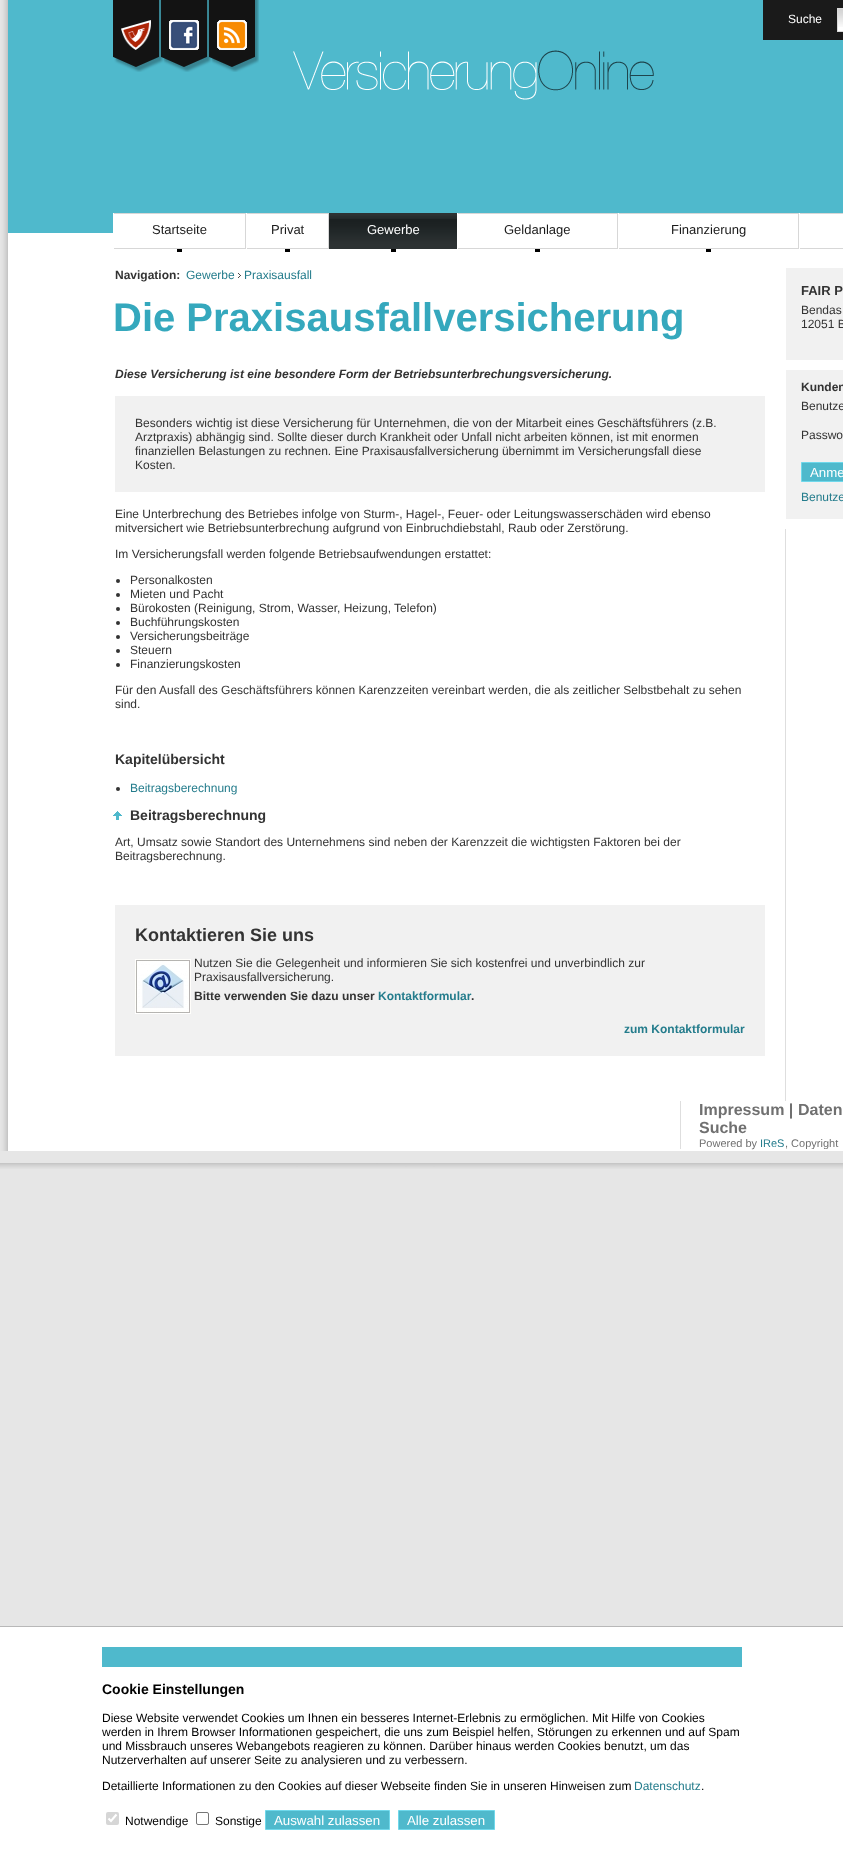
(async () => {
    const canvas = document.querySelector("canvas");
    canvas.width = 843;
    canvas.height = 1875;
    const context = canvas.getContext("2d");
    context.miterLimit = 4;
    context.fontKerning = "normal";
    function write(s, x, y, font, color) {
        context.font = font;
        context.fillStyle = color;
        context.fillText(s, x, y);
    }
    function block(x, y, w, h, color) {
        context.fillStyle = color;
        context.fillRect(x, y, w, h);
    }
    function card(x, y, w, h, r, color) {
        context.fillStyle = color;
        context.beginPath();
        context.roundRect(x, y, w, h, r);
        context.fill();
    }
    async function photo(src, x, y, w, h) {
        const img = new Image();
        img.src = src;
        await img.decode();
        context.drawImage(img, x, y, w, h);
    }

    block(0, 0, 843, 1875, "rgb(230, 230, 230)");
    block(8, 0, 835, 233, "rgb(79, 185, 204)");
    await photo("media/1.png", 0, 0, 8, 233);
    await photo("media/2.png", 113, 0, 50, 72);
    await photo("media/3.png", 121, 20, 30, 30);
    await photo("media/4.png", 161, 0, 50, 72);
    await photo("media/5.png", 169, 20, 30, 30);
    await photo("media/4.png", 209, 0, 50, 72);
    await photo("media/6.png", 217, 20, 30, 30);
    block(763, 0, 80, 40, "rgb(26, 26, 26)");
    write("Suche", 788, 23, "12px Liberation Sans", "rgb(255, 255, 255)");
    block(838, 27, 5, 5, "rgb(255, 255, 255)");
    await photo("media/7.png", 838, 9, 5, 18);
    context.strokeStyle = "rgb(218, 218, 218)";
    context.strokeRect(837.5, 8.5, 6, 23);
    await photo("media/8.png", 293, 50, 361, 50);
    block(113, 214, 730, 19, "rgb(255, 255, 255)");
    block(113, 213, 216, 1, "rgb(215, 215, 215)");
    block(8, 233, 835, 918, "rgb(255, 255, 255)");
    block(245, 213, 1, 36, "rgb(215, 215, 215)");
    block(113, 248, 133, 1, "rgb(215, 215, 215)");
    block(113, 213, 1, 36, "rgb(255, 255, 255)");
    write("Startseite", 152, 234, "13px Liberation Sans", "rgb(26, 26, 26)");
    block(177, 249, 5, 3, "rgb(0, 0, 0)");
    block(328, 213, 1, 36, "rgb(215, 215, 215)");
    block(246, 248, 83, 1, "rgb(215, 215, 215)");
    block(246, 213, 1, 36, "rgb(255, 255, 255)");
    write("Privat", 271, 234, "13px Liberation Sans", "rgb(26, 26, 26)");
    block(285, 249, 5, 3, "rgb(0, 0, 0)");
    await photo("media/9.png", 329, 214, 128, 35);
    block(329, 213, 128, 1, "rgb(45, 50, 51)");
    write("Gewerbe", 367, 234, "13px Liberation Sans", "rgb(255, 255, 255)");
    block(391, 249, 5, 3, "rgb(0, 0, 0)");
    block(457, 213, 386, 1, "rgb(215, 215, 215)");
    block(617, 213, 1, 36, "rgb(215, 215, 215)");
    block(457, 248, 161, 1, "rgb(215, 215, 215)");
    block(457, 213, 1, 36, "rgb(255, 255, 255)");
    write("Geldanlage", 504, 234, "13px Liberation Sans", "rgb(26, 26, 26)");
    block(535, 249, 5, 3, "rgb(0, 0, 0)");
    block(798, 213, 1, 36, "rgb(215, 215, 215)");
    block(618, 248, 225, 1, "rgb(215, 215, 215)");
    block(618, 213, 1, 36, "rgb(255, 255, 255)");
    write("Finanzierung", 671, 234, "13px Liberation Sans", "rgb(26, 26, 26)");
    block(706, 249, 5, 3, "rgb(0, 0, 0)");
    block(799, 213, 1, 36, "rgb(255, 255, 255)");
    await photo("media/10.png", 0, 233, 8, 918);
    block(785, 529, 1, 572, "rgb(222, 222, 222)");
    write("Navigation:", 115, 279, "bold 12px Liberation Sans", "rgb(51, 51, 51)");
    write("Gewerbe", 186, 279, "12px Liberation Sans", "rgb(36, 124, 140)");
    await photo("media/11.png", 238, 273, 3, 5);
    write("Praxisausfall", 244, 279, "12px Liberation Sans", "rgb(36, 124, 140)");
    write("Die Praxisausfallversicherung", 113, 331, "bold 40px Liberation Sans", "rgb(53, 168, 189)");
    write("Diese Versicherung ist eine besondere Form der Betriebsunterbrechungsversicherung.", 115, 378, "italic bold 12px Liberation Sans", "rgb(51, 51, 51)");
    block(115, 396, 650, 96, "rgb(241, 241, 241)");
    write("Besonders wichtig ist diese Versicherung für Unternehmen, die von der Mitarbeit eines Geschäftsführers (z.B.", 135, 427, "12px Liberation Sans", "rgb(51, 51, 51)");
    write("Arztpraxis) abhängig sind. Sollte dieser durch Krankheit oder Unfall nicht arbeiten können, ist mit enormen", 135, 441, "12px Liberation Sans", "rgb(51, 51, 51)");
    write("finanziellen Belastungen zu rechnen. Eine Praxisausfallversicherung übernimmt im Versicherungsfall diese", 135, 455, "12px Liberation Sans", "rgb(51, 51, 51)");
    write("Kosten.", 135, 469, "12px Liberation Sans", "rgb(51, 51, 51)");
    write("Eine Unterbrechung des Betriebes infolge von Sturm-, Hagel-, Feuer- oder Leitungswasserschäden wird ebenso", 115, 518, "12px Liberation Sans", "rgb(51, 51, 51)");
    write("mitversichert wie Betriebsunterbrechung aufgrund von Einbruchdiebstahl, Raub oder Zerstörung.", 115, 532, "12px Liberation Sans", "rgb(51, 51, 51)");
    write("Im Versicherungsfall werden folgende Betriebsaufwendungen erstattet:", 115, 558, "12px Liberation Sans", "rgb(51, 51, 51)");
    context.beginPath();
    context.arc(118, 581, 2, 0, Math.PI * 2);
    context.fill();
    write("Personalkosten", 130, 584, "12px Liberation Sans", "rgb(51, 51, 51)");
    context.beginPath();
    context.arc(118, 595, 2, 0, Math.PI * 2);
    context.fill();
    write("Mieten und Pacht", 130, 598, "12px Liberation Sans", "rgb(51, 51, 51)");
    context.beginPath();
    context.arc(118, 609, 2, 0, Math.PI * 2);
    context.fill();
    write("Bürokosten (Reinigung, Strom, Wasser, Heizung, Telefon)", 130, 612, "12px Liberation Sans", "rgb(51, 51, 51)");
    context.beginPath();
    context.arc(118, 623, 2, 0, Math.PI * 2);
    context.fill();
    write("Buchführungskosten", 130, 626, "12px Liberation Sans", "rgb(51, 51, 51)");
    context.beginPath();
    context.arc(118, 637, 2, 0, Math.PI * 2);
    context.fill();
    write("Versicherungsbeiträge", 130, 640, "12px Liberation Sans", "rgb(51, 51, 51)");
    context.beginPath();
    context.arc(118, 651, 2, 0, Math.PI * 2);
    context.fill();
    write("Steuern", 130, 654, "12px Liberation Sans", "rgb(51, 51, 51)");
    context.beginPath();
    context.arc(118, 665, 2, 0, Math.PI * 2);
    context.fill();
    write("Finanzierungskosten", 130, 668, "12px Liberation Sans", "rgb(51, 51, 51)");
    write("Für den Ausfall des Geschäftsführers können Karenzzeiten vereinbart werden, die als zeitlicher Selbstbehalt zu sehen", 115, 694, "12px Liberation Sans", "rgb(51, 51, 51)");
    write("sind.", 115, 708, "12px Liberation Sans", "rgb(51, 51, 51)");
    write("Kapitelübersicht", 115, 764, "bold 14px Liberation Sans", "rgb(51, 51, 51)");
    context.beginPath();
    context.arc(118, 789, 2, 0, Math.PI * 2);
    context.fill();
    write("Beitragsberechnung", 130, 792, "12px Liberation Sans", "rgb(36, 124, 140)");
    await photo("media/12.png", 113, 811, 9, 9);
    write("Beitragsberechnung", 130, 820, "bold 14px Liberation Sans", "rgb(51, 51, 51)");
    write("Art, Umsatz sowie Standort des Unternehmens sind neben der Karenzzeit die wichtigsten Faktoren bei der", 115, 846, "12px Liberation Sans", "rgb(51, 51, 51)");
    write("Beitragsberechnung.", 115, 860, "12px Liberation Sans", "rgb(51, 51, 51)");
    block(115, 905, 650, 151, "rgb(241, 241, 241)");
    write("Kontaktieren Sie uns", 135, 941, "bold 18px Liberation Sans", "rgb(51, 51, 51)");
    await photo("media/13.png", 135, 959, 56, 55);
    write("Nutzen Sie die Gelegenheit und informieren Sie sich kostenfrei und unverbindlich zur", 194, 967, "12px Liberation Sans", "rgb(51, 51, 51)");
    write("Praxisausfallversicherung.", 194, 981, "12px Liberation Sans", "rgb(51, 51, 51)");
    write("Bitte verwenden Sie dazu unser", 194, 1000, "bold 12px Liberation Sans", "rgb(51, 51, 51)");
    write("Kontaktformular", 378, 1000, "bold 12px Liberation Sans", "rgb(36, 124, 140)");
    write(".", 471, 1000, "bold 12px Liberation Sans", "rgb(51, 51, 51)");
    write("zum Kontaktformular", 624, 1033, "bold 12px Liberation Sans", "rgb(36, 124, 140)");
    block(786, 268, 57, 92, "rgb(241, 241, 241)");
    write("FAIR P", 801, 295, "bold 13px Liberation Sans", "rgb(51, 51, 51)");
    write("Bendas", 801, 314, "12px Liberation Sans", "rgb(51, 51, 51)");
    write("12051 B", 801, 328, "12px Liberation Sans", "rgb(51, 51, 51)");
    block(786, 370, 57, 149, "rgb(241, 241, 241)");
    write("Kunden", 801, 391, "bold 12px Liberation Sans", "rgb(51, 51, 51)");
    write("Benutze", 801, 410, "12px Liberation Sans", "rgb(51, 51, 51)");
    write("Passwo", 801, 439, "12px Liberation Sans", "rgb(51, 51, 51)");
    context.fillStyle = "rgb(79, 185, 204)";
    context.beginPath();
    context.rect(801.5, 462.5, 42, 19);
    context.fill();
    context.strokeStyle = "rgb(111, 216, 235)";
    context.stroke();
    write("Anme", 810, 477, "13.25px Liberation Sans", "rgb(255, 255, 255)");
    write("Benutze", 801, 501, "12px Liberation Sans", "rgb(36, 124, 140)");
    await photo("media/14.png", 0, 1163, 843, 6);
    block(680, 1101, 1, 48, "rgb(222, 222, 222)");
    write("Impressum |", 699, 1115, "bold 16px Liberation Sans", "rgb(112, 112, 112)");
    write("Daten", 798, 1115, "bold 16px Liberation Sans", "rgb(112, 112, 112)");
    write("Suche", 699, 1133, "bold 16px Liberation Sans", "rgb(112, 112, 112)");
    write("Powered by", 699, 1147, "11px Liberation Sans", "rgb(112, 112, 112)");
    write("IReS", 760, 1147, "11px Liberation Sans", "rgb(36, 124, 140)");
    context.save();
    context.beginPath();
    context.rect(8, 1101, 835, 48);
    context.clip();
    write(", Copyright", 785, 1147, "11px Liberation Sans", "rgb(112, 112, 112)");
    context.restore();
    context.strokeStyle = "rgb(184, 184, 184)";
    context.strokeRect(-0.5, 1626.5, 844, 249);
    block(0, 1627, 843, 248, "rgb(255, 255, 255)");
    block(102, 1647, 640, 20, "rgb(79, 185, 204)");
    write("Cookie Einstellungen", 102, 1694, "bold 14px Liberation Sans", "rgb(0, 0, 0)");
    write("Diese Website verwendet Cookies um Ihnen ein besseres Internet-Erlebnis zu ermöglichen. Mit Hilfe von Cookies", 102, 1722, "12px Liberation Sans", "rgb(0, 0, 0)");
    write("werden in Ihrem Browser Informationen gespeichert, die uns zum Beispiel helfen, Störungen zu erkennen und auf Spam", 102, 1736, "12px Liberation Sans", "rgb(0, 0, 0)");
    write("und Missbrauch unseres Webangebots reagieren zu können. Darüber hinaus werden Cookies benutzt, um das", 102, 1750, "12px Liberation Sans", "rgb(0, 0, 0)");
    write("Nutzerverhalten auf unserer Seite zu analysieren und zu verbessern.", 102, 1764, "12px Liberation Sans", "rgb(0, 0, 0)");
    write("Detaillierte Informationen zu den Cookies auf dieser Webseite finden Sie in unseren Hinweisen zum", 102, 1790, "12px Liberation Sans", "rgb(0, 0, 0)");
    write("Datenschutz", 634, 1790, "12px Liberation Sans", "rgb(36, 124, 140)");
    write(".", 701, 1790, "12px Liberation Sans", "rgb(0, 0, 0)");
    card(106, 1812, 13, 13, 2, "rgb(214, 214, 214)");
    context.beginPath();
    context.moveTo(108.5, 1818.5);
    context.lineTo(111, 1821);
    context.lineTo(116.5, 1814.5);
    context.strokeStyle = "rgb(255, 255, 255)";
    context.lineWidth = 2.1;
    context.stroke();
    write("Notwendige", 125, 1825, "12px Liberation Sans", "rgb(0, 0, 0)");
    context.beginPath();
    context.roundRect(196.5, 1812.5, 12, 12, 1.5);
    context.strokeStyle = "rgb(118, 118, 118)";
    context.lineWidth = 1;
    context.stroke();
    write("Sonstige", 215, 1825, "12px Liberation Sans", "rgb(0, 0, 0)");
    context.fillStyle = "rgb(79, 185, 204)";
    context.beginPath();
    context.rect(265.5, 1810.5, 124, 19);
    context.fill();
    context.strokeStyle = "rgb(111, 216, 235)";
    context.stroke();
    write("Auswahl zulassen", 274, 1825, "13.25px Liberation Sans", "rgb(255, 255, 255)");
    context.fillStyle = "rgb(79, 185, 204)";
    context.beginPath();
    context.rect(398.5, 1810.5, 96, 19);
    context.fill();
    context.stroke();
    write("Alle zulassen", 407, 1825, "13.25px Liberation Sans", "rgb(255, 255, 255)");
})();
